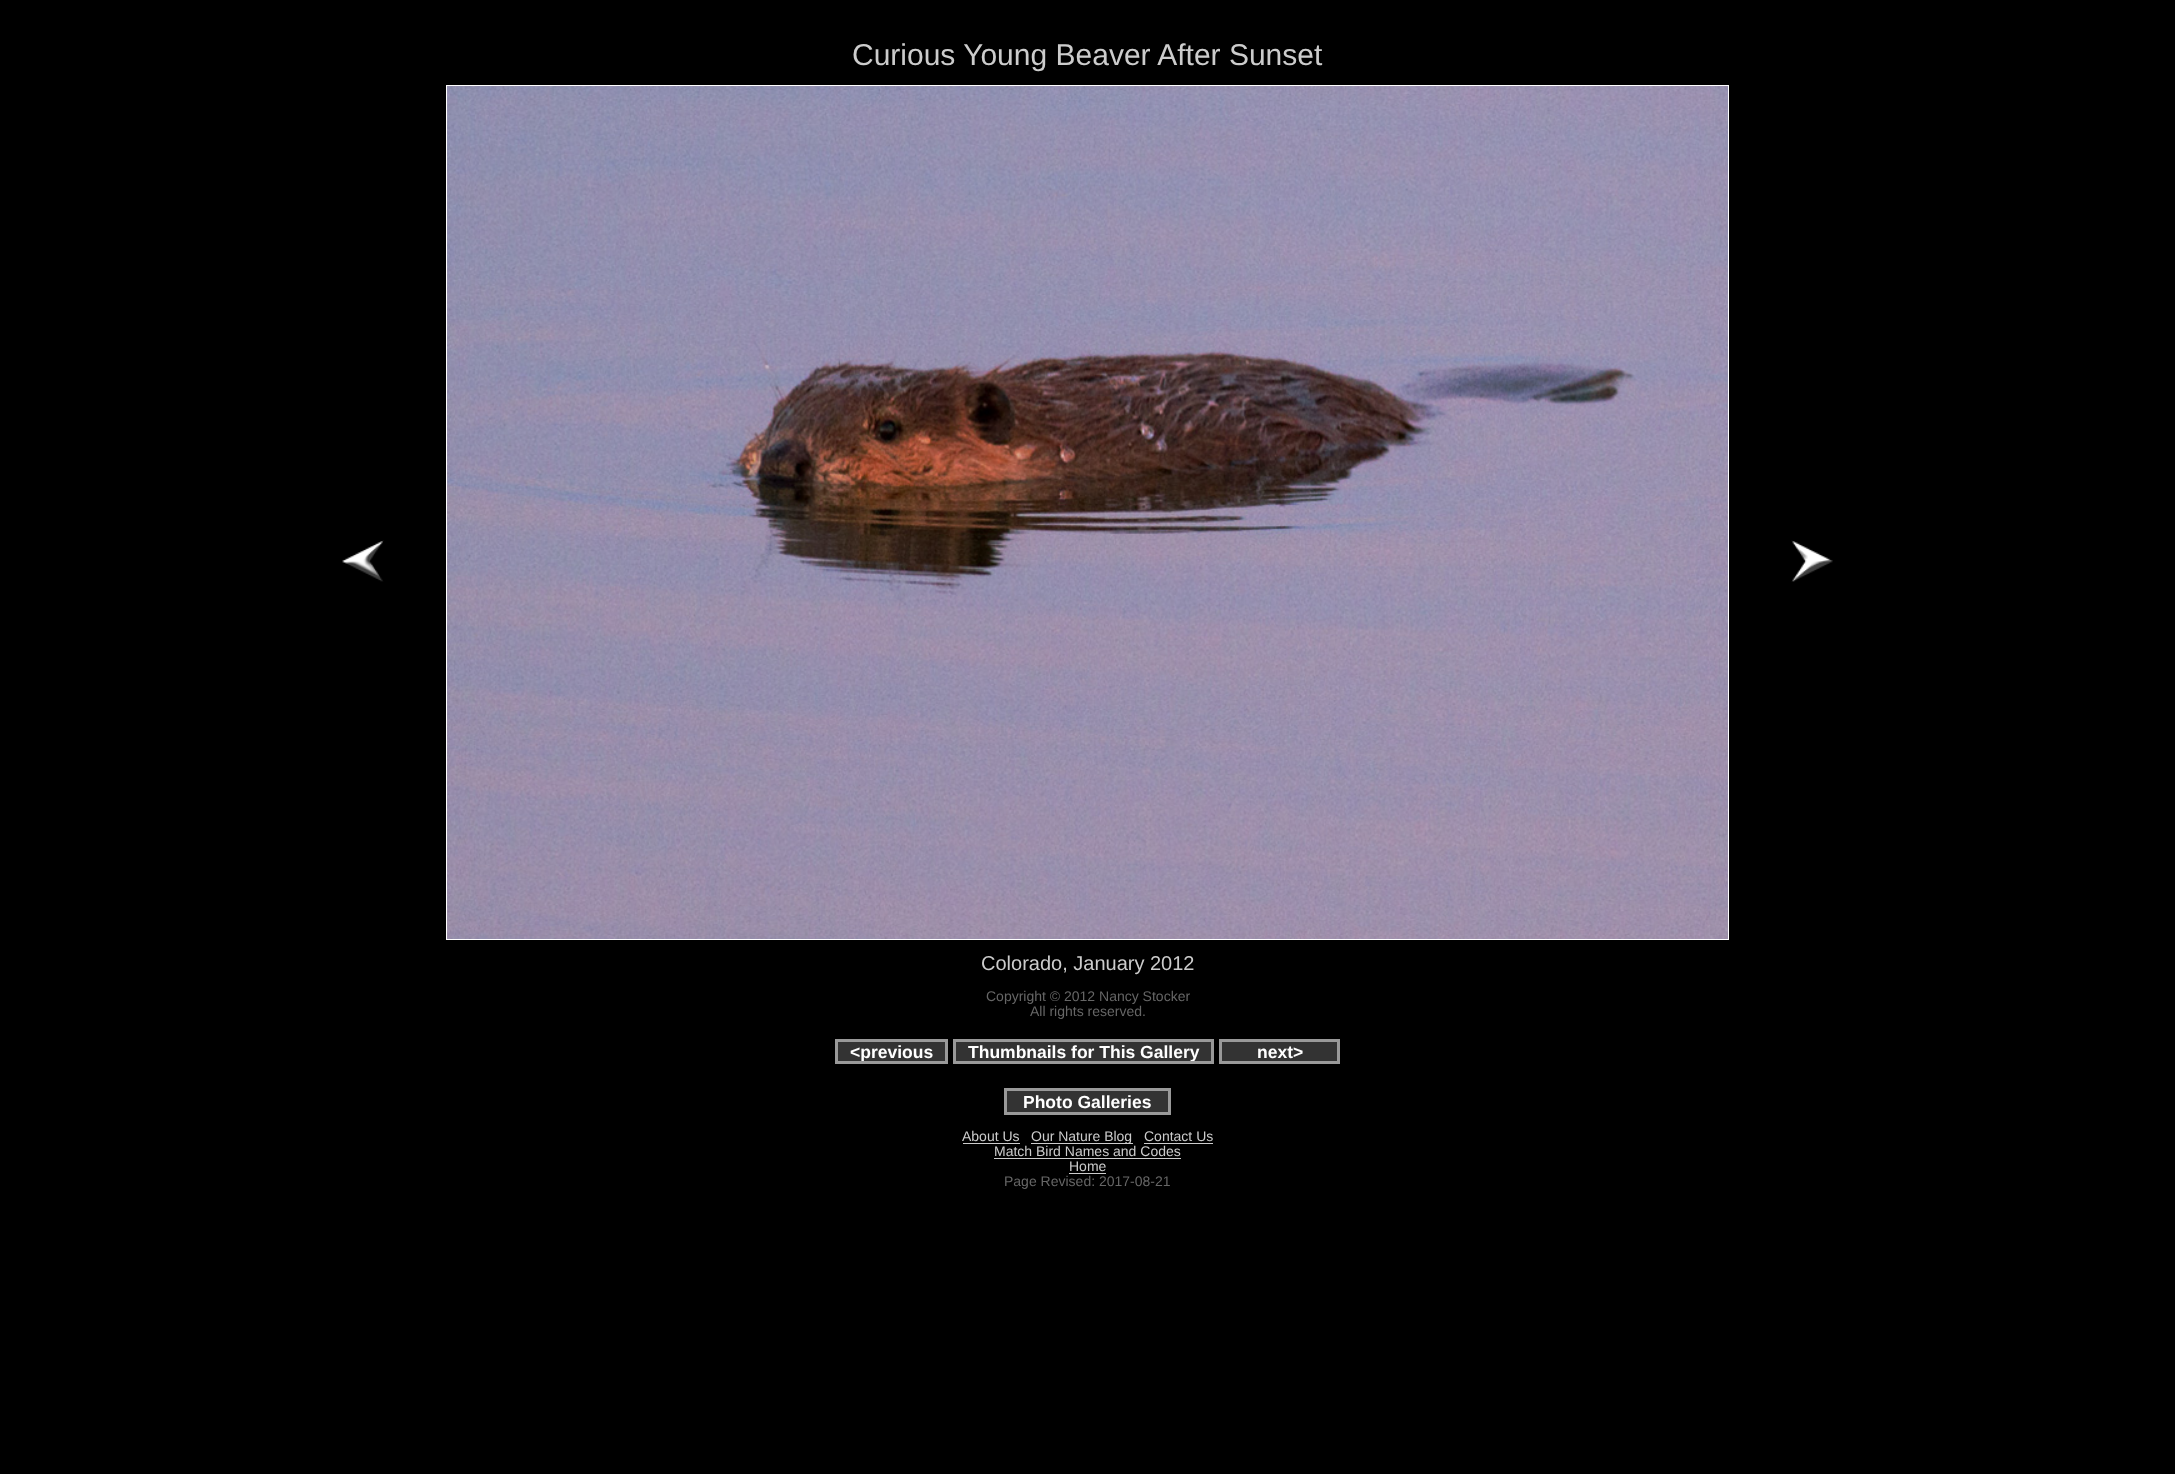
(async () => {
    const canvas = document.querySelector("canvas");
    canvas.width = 2175;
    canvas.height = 1474;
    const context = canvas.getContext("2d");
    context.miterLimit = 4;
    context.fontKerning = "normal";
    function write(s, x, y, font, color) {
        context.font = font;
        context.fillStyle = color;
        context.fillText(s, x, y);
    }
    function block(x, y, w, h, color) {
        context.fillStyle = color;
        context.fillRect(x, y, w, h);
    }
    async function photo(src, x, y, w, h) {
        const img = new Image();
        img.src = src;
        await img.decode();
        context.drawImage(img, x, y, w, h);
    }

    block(0, 0, 2175, 1474, "rgb(0, 0, 0)");
    write("Curious Young Beaver After Sunset", 852, 65, "30px Liberation Sans", "rgb(204, 204, 204)");
    await photo("media/1.png", 342, 540, 42, 42);
    await photo("media/2.png", 447, 86, 1281, 853);
    context.strokeStyle = "rgb(255, 255, 255)";
    context.strokeRect(446.5, 85.5, 1282, 854);
    await photo("media/3.png", 1791, 540, 42, 42);
    write("Colorado, January 2012", 981, 970, "20px Liberation Sans", "rgb(204, 204, 204)");
    write("Copyright © 2012 Nancy Stocker", 986, 1001, "14px Liberation Sans", "rgb(102, 102, 102)");
    write("All rights reserved.", 1030, 1016, "14px Liberation Sans", "rgb(102, 102, 102)");
    context.fillStyle = "rgb(51, 51, 51)";
    context.beginPath();
    context.rect(836.5, 1040.5, 110, 22);
    context.fill();
    context.strokeStyle = "rgb(153, 153, 153)";
    context.lineWidth = 3;
    context.stroke();
    context.save();
    context.beginPath();
    context.rect(838, 1041, 107, 20);
    context.clip();
    write("<previous", 850, 1058, "bold 17.5px Liberation Sans", "rgb(255, 255, 255)");
    context.restore();
    context.beginPath();
    context.rect(954.5, 1040.5, 258, 22);
    context.fill();
    context.stroke();
    context.save();
    context.beginPath();
    context.rect(955, 1041, 256, 20);
    context.clip();
    write("Thumbnails for This Gallery", 968, 1058, "bold 17.5px Liberation Sans", "rgb(255, 255, 255)");
    context.restore();
    context.beginPath();
    context.rect(1220.5, 1040.5, 118, 22);
    context.fill();
    context.stroke();
    write("next>", 1257, 1058, "bold 17.5px Liberation Sans", "rgb(255, 255, 255)");
    context.fillStyle = "rgb(51, 51, 51)";
    context.beginPath();
    context.rect(1005.5, 1089.5, 164, 24);
    context.fill();
    context.stroke();
    write("Photo Galleries", 1023, 1108, "bold 17.5px Liberation Sans", "rgb(255, 255, 255)");
    write("About Us", 962, 1141, "14px Liberation Sans", "rgb(204, 204, 204)");
    block(963, 1143, 57, 1, "rgb(204, 204, 204)");
    block(1031, 1143, 102, 1, "rgb(204, 204, 204)");
    write("Our Nature Blog", 1031, 1141, "14px Liberation Sans", "rgb(204, 204, 204)");
    write("Contact Us", 1144, 1141, "14px Liberation Sans", "rgb(204, 204, 204)");
    block(1144, 1143, 69, 1, "rgb(204, 204, 204)");
    write("Match Bird Names and Codes", 994, 1156, "14px Liberation Sans", "rgb(204, 204, 204)");
    block(994, 1158, 187, 1, "rgb(204, 204, 204)");
    write("Home", 1069, 1171, "14px Liberation Sans", "rgb(204, 204, 204)");
    block(1069, 1173, 37, 1, "rgb(204, 204, 204)");
    write("Page Revised: 2017-08-21", 1004, 1186, "14px Liberation Sans", "rgb(102, 102, 102)");
})();
